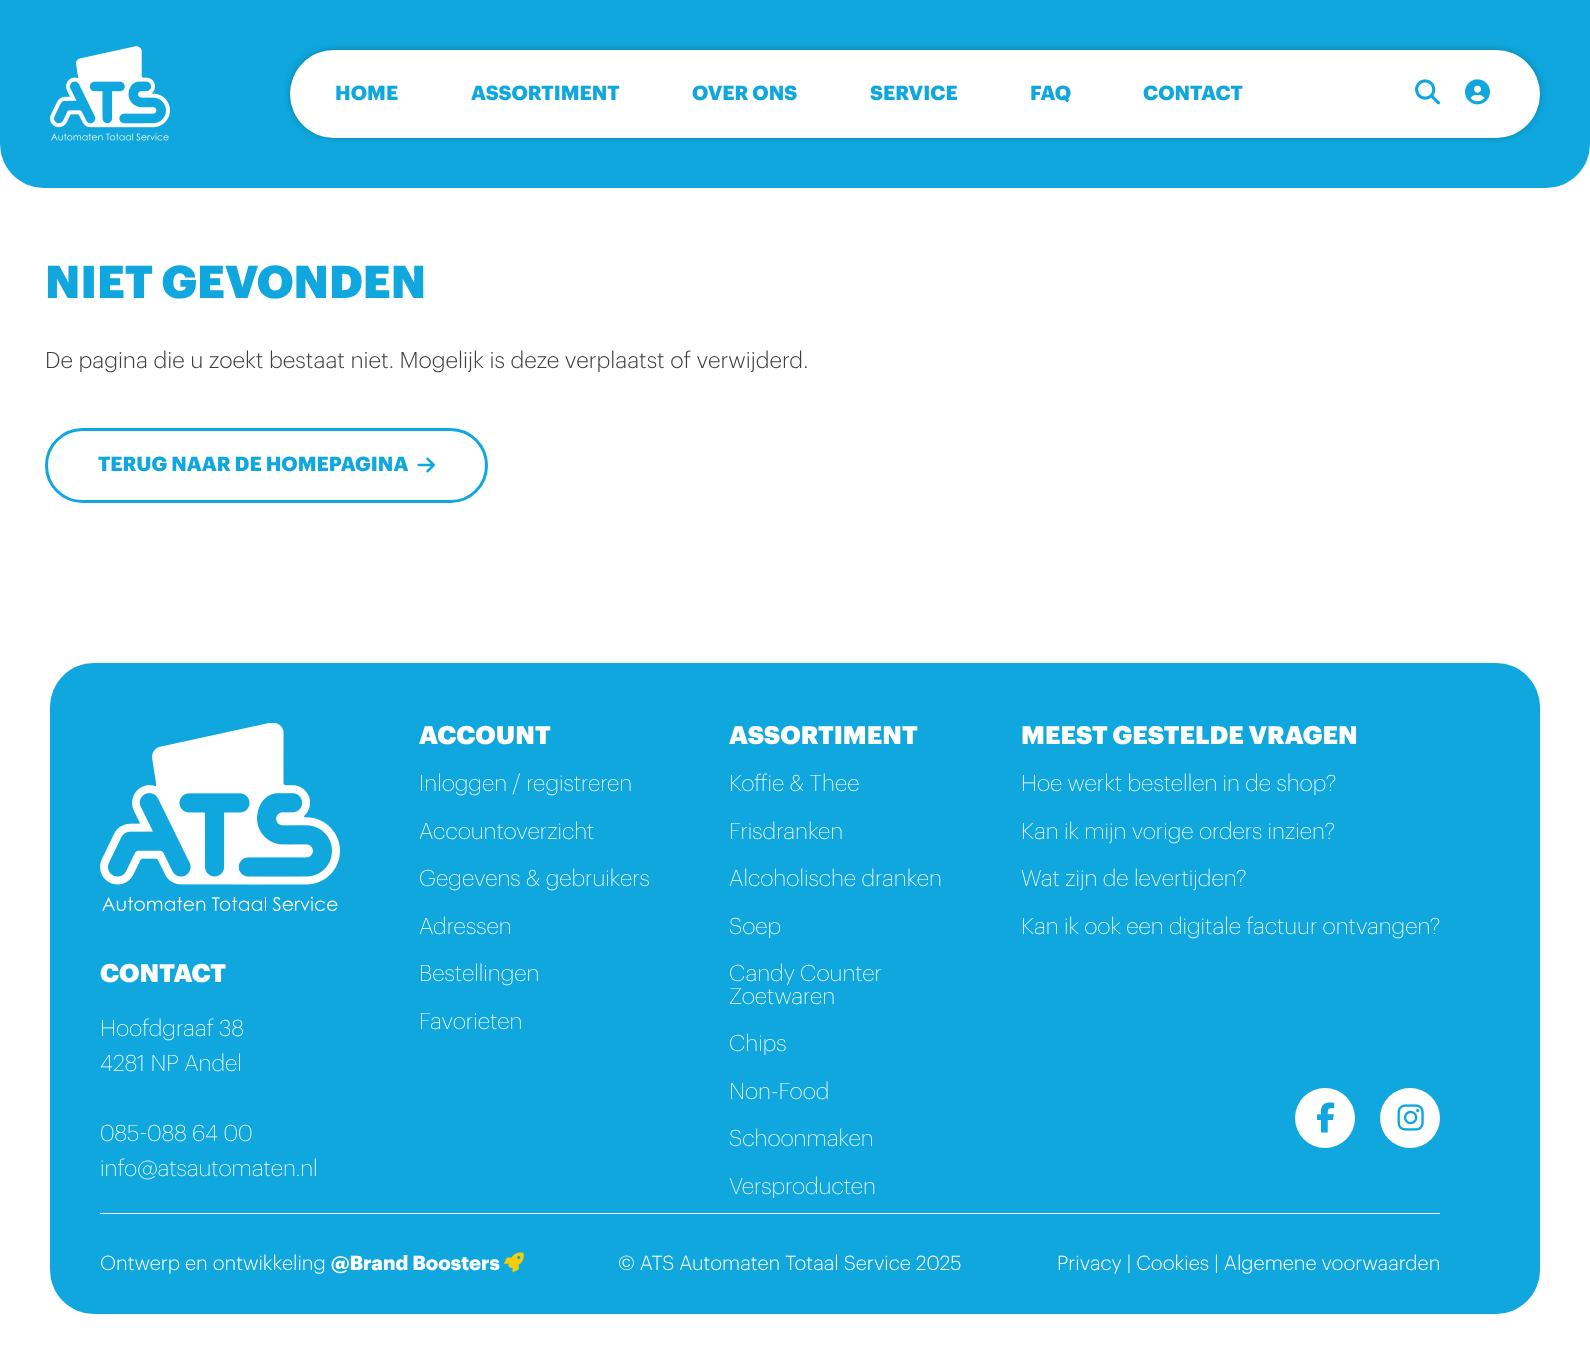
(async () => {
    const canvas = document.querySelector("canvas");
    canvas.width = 1590;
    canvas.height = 1372;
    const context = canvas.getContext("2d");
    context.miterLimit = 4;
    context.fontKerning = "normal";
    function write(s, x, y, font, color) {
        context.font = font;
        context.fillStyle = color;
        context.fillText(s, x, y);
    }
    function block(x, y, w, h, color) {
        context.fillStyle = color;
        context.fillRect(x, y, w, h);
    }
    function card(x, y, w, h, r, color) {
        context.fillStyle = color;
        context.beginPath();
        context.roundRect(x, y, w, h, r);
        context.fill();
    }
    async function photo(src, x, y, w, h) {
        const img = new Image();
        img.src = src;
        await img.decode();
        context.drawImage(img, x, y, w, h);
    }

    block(0, 0, 1590, 1372, "rgb(255, 255, 255)");
    context.fillStyle = "rgb(15, 167, 221)";
    context.beginPath();
    context.roundRect(0, 0, 1590, 188, [0, 0, 44, 44]);
    context.fill();
    await photo("media/1.png", 50, 46, 120, 95);
    context.fillStyle = "rgb(0, 0, 0)";
    context.filter = "blur(6px)";
    context.beginPath();
    context.roundRect(296, 56, 1238, 75, 37.5);
    context.fill();
    context.filter = "none";
    card(290, 50, 1250, 88, 44, "rgb(255, 255, 255)");
    write("HOME", 335, 100, "bold 20px Graphik", "rgb(15, 167, 221)");
    write("ASSORTIMENT", 471, 100, "bold 20px Graphik", "rgb(15, 167, 221)");
    write("OVER ONS", 692, 100, "bold 20px Graphik", "rgb(15, 167, 221)");
    write("SERVICE", 870, 100, "bold 20px Graphik", "rgb(15, 167, 221)");
    write("FAQ", 1030, 100, "bold 20px Graphik", "rgb(15, 167, 221)");
    write("CONTACT", 1143, 100, "bold 20px Graphik", "rgb(15, 167, 221)");
    await photo("media/2.png", 1415, 79, 25, 26);
    await photo("media/3.png", 1465, 79, 25, 26);
    write("NIET GEVONDEN", 45, 298, "900 45px Graphik", "rgb(15, 167, 221)");
    write("De pagina die u zoekt bestaat niet. Mogelijk is deze verplaatst of verwijderd.", 45, 368, "300 22.5px Graphik", "rgb(62, 62, 62)");
    context.beginPath();
    context.roundRect(46.5, 429.5, 440, 72, 36);
    context.strokeStyle = "rgb(15, 167, 221)";
    context.lineWidth = 3;
    context.stroke();
    write("TERUG NAAR DE HOMEPAGINA", 98, 471, "bold 20px Graphik", "rgb(15, 167, 221)");
    await photo("media/4.png", 417, 457, 18, 16);
    card(50, 663, 1490, 651, 44, "rgb(15, 167, 221)");
    write("ACCOUNT", 419, 744, "900 25px Graphik", "rgb(255, 255, 255)");
    write("Inloggen / registreren", 419, 791, "200 22.5px Graphik", "rgb(255, 255, 255)");
    write("Accountoverzicht", 419, 839, "200 22.5px Graphik", "rgb(255, 255, 255)");
    write("Gegevens & gebruikers", 419, 886, "200 22.5px Graphik", "rgb(255, 255, 255)");
    write("Adressen", 419, 934, "200 22.5px Graphik", "rgb(255, 255, 255)");
    write("Bestellingen", 419, 981, "200 22.5px Graphik", "rgb(255, 255, 255)");
    write("Favorieten", 419, 1029, "200 22.5px Graphik", "rgb(255, 255, 255)");
    write("ASSORTIMENT", 729, 744, "900 25px Graphik", "rgb(255, 255, 255)");
    write("Koffie & Thee", 729, 791, "200 22.5px Graphik", "rgb(255, 255, 255)");
    write("Frisdranken", 729, 839, "200 22.5px Graphik", "rgb(255, 255, 255)");
    write("Alcoholische dranken", 729, 886, "200 22.5px Graphik", "rgb(255, 255, 255)");
    write("Soep", 729, 934, "200 22.5px Graphik", "rgb(255, 255, 255)");
    write("Candy Counter", 729, 981, "200 22.5px Graphik", "rgb(255, 255, 255)");
    write("Zoetwaren", 729, 1004, "200 22.5px Graphik", "rgb(255, 255, 255)");
    write("Chips", 729, 1051, "200 22.5px Graphik", "rgb(255, 255, 255)");
    write("Non-Food", 729, 1099, "200 22.5px Graphik", "rgb(255, 255, 255)");
    write("Schoonmaken", 729, 1146, "200 22.5px Graphik", "rgb(255, 255, 255)");
    write("Versproducten", 729, 1194, "200 22.5px Graphik", "rgb(255, 255, 255)");
    write("MEEST GESTELDE VRAGEN", 1021, 744, "900 25px Graphik", "rgb(255, 255, 255)");
    write("Hoe werkt bestellen in de shop?", 1021, 791, "200 22.5px Graphik", "rgb(255, 255, 255)");
    write("Kan ik mijn vorige orders inzien?", 1021, 839, "200 22.5px Graphik", "rgb(255, 255, 255)");
    write("Wat zijn de levertijden?", 1021, 886, "200 22.5px Graphik", "rgb(255, 255, 255)");
    write("Kan ik ook een digitale factuur ontvangen?", 1021, 934, "200 22.5px Graphik", "rgb(255, 255, 255)");
    await photo("media/5.png", 100, 723, 240, 188);
    write("CONTACT", 100, 982, "900 25px Graphik", "rgb(255, 255, 255)");
    write("Hoofdgraaf 38", 100, 1036, "200 22.5px Graphik", "rgb(255, 255, 255)");
    write("4281 NP Andel", 100, 1071, "200 22.5px Graphik", "rgb(255, 255, 255)");
    write("085-088 64 00", 100, 1141, "200 22.5px Graphik", "rgb(255, 255, 255)");
    write("info@atsautomaten.nl", 100, 1176, "200 22.5px Graphik", "rgb(255, 255, 255)");
    context.beginPath();
    context.arc(1325, 1118, 30, 0, Math.PI * 2);
    context.fill();
    await photo("media/6.png", 1317, 1102, 18, 31);
    context.beginPath();
    context.arc(1410, 1118, 30, 0, Math.PI * 2);
    context.fill();
    await photo("media/7.png", 1397, 1104, 27, 27);
    block(100, 1213, 1340, 1, "rgb(255, 255, 255)");
    write("Ontwerp en ontwikkeling", 100, 1270, "300 20px Graphik", "rgb(255, 255, 255)");
    write("@Brand Boosters", 331, 1270, "bold 20px Graphik", "rgb(255, 255, 255)");
    await photo("media/8.png", 503, 1252, 21, 21);
    write("© ATS Automaten Totaal Service 2025", 618, 1270, "300 20px Graphik", "rgb(255, 255, 255)");
    write("Privacy | Cookies | Algemene voorwaarden", 1057, 1270, "300 20px Graphik", "rgb(255, 255, 255)");
})();
